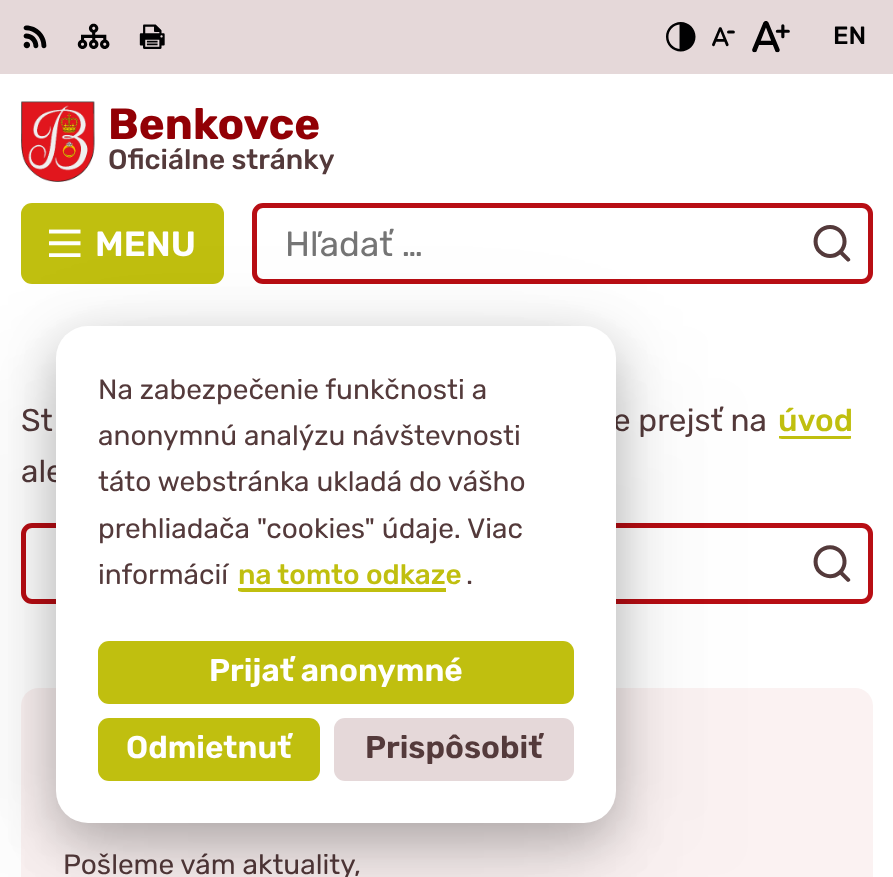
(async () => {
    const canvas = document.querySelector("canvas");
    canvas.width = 893;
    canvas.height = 877;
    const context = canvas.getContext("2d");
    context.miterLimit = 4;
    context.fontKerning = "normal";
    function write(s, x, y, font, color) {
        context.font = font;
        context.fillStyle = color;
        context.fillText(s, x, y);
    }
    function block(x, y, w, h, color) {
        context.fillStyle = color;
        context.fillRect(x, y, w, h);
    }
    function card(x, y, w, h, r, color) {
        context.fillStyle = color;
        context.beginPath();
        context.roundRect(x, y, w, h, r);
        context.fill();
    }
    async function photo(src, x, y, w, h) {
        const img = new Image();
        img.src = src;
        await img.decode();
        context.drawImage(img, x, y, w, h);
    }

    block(0, 0, 893, 877, "rgb(255, 255, 255)");
    block(0, 0, 893, 74, "rgb(229, 216, 217)");
    await photo("media/1.png", 23, 25, 24, 24);
    await photo("media/2.png", 77, 23, 33, 26);
    await photo("media/3.png", 139, 24, 26, 25);
    await photo("media/4.png", 666, 22, 30, 30);
    await photo("media/5.png", 712, 27, 23, 20);
    await photo("media/6.png", 752, 21, 38, 32);
    write("EN", 833, 44, "500 25px Rubik", "rgb(1, 1, 2)");
    await photo("media/7.png", 21, 101, 74, 81);
    write("Benkovce", 108, 139, "bold 43.75px Rubik", "rgb(146, 0, 5)");
    write("Oficiálne stránky", 108, 169, "500 28px Rubik", "rgb(84, 58, 59)");
    card(21, 203, 203, 81, 11, "rgb(192, 191, 15)");
    await photo("media/8.png", 49, 229, 32, 28);
    write("MENU", 95, 256, "600 35px Rubik", "rgb(255, 255, 255)");
    context.beginPath();
    context.roundRect(254.5, 205.5, 616, 76, 8.5);
    context.strokeStyle = "rgb(184, 14, 20)";
    context.lineWidth = 5;
    context.stroke();
    write("Hľadať …", 285, 256, "35px Rubik", "rgb(117, 117, 117)");
    await photo("media/9.png", 813, 225, 38, 37);
    write("St", 21, 431, "31.5px Rubik", "rgb(84, 58, 59)");
    write("e prejsť na", 613, 431, "31.5px Rubik", "rgb(84, 58, 59)");
    write("úvod", 778, 431, "500 31.5px Rubik", "rgb(192, 191, 15)");
    context.save();
    context.beginPath();
    context.roundRect(775, 401, 81, 38, 7);
    context.clip();
    block(779, 436, 72, 3, "rgb(192, 191, 15)");
    context.restore();
    write("ale", 21, 482, "31.5px Rubik", "rgb(84, 58, 59)");
    context.beginPath();
    context.roundRect(23.5, 525.5, 847, 76, 8.5);
    context.stroke();
    await photo("media/10.png", 813, 545, 38, 37);
    card(21, 688, 852, 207, 18, "rgb(251, 242, 242)");
    write("Pošleme vám aktuality,", 63, 874, "28px Rubik", "rgb(84, 58, 59)");
    context.fillStyle = "rgba(0, 0, 0, 0.05)";
    context.filter = "blur(79px)";
    context.beginPath();
    context.roundRect(56, 378, 560, 497, 32);
    context.fill();
    context.filter = "none";
    context.filter = "blur(52.5px)";
    context.beginPath();
    context.roundRect(56, 361, 560, 497, 32);
    context.fill();
    context.filter = "none";
    context.fillStyle = "rgba(0, 0, 0, 0.25)";
    context.filter = "blur(26px)";
    context.beginPath();
    context.roundRect(56, 343, 560, 497, 32);
    context.fill();
    context.filter = "none";
    card(56, 326, 560, 497, 32, "rgb(255, 255, 255)");
    write("Na zabezpečenie funkčnosti a", 98, 399, "28px Rubik", "rgb(84, 58, 59)");
    write("anonymnú analýzu návštevnosti", 98, 445, "28px Rubik", "rgb(84, 58, 59)");
    write("táto webstránka ukladá do vášho", 98, 491, "28px Rubik", "rgb(84, 58, 59)");
    write("prehliadača \"cookies\" údaje. Viac", 98, 538, "28px Rubik", "rgb(84, 58, 59)");
    write("informácií", 98, 584, "28px Rubik", "rgb(84, 58, 59)");
    write("na tomto odkaze", 238, 584, "500 28px Rubik", "rgb(192, 191, 15)");
    context.save();
    context.beginPath();
    context.roundRect(235, 558, 231, 34, 7);
    context.clip();
    block(238, 588, 208, 4, "rgb(192, 191, 15)");
    context.restore();
    write(".", 466, 584, "28px Rubik", "rgb(84, 58, 59)");
    card(98, 641, 476, 63, 11, "rgb(192, 191, 15)");
    write("Prijať anonymné", 209, 681, "600 31.5px Rubik", "rgb(255, 255, 255)");
    card(98, 718, 222, 63, 11, "rgb(192, 191, 15)");
    write("Odmietnuť", 126, 758, "600 31.5px Rubik", "rgb(255, 255, 255)");
    card(334, 718, 240, 63, 11, "rgb(229, 216, 217)");
    write("Prispôsobiť", 365, 758, "600 31.5px Rubik", "rgb(84, 58, 59)");
})();
